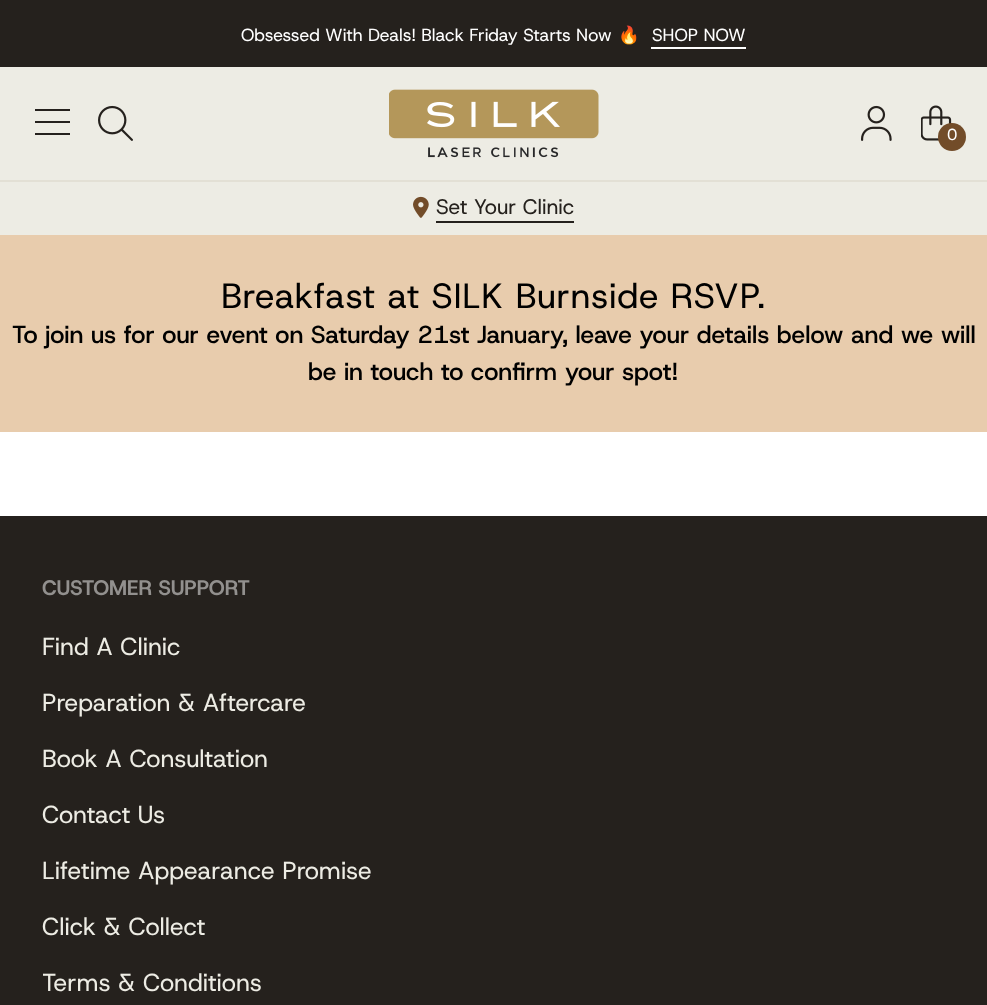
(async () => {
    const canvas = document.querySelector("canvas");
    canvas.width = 987;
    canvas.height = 1005;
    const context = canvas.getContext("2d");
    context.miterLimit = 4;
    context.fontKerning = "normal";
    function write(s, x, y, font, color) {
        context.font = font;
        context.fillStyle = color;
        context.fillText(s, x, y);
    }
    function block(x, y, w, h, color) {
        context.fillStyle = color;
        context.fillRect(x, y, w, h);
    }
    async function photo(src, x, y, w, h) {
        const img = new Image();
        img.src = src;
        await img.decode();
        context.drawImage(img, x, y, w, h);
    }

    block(0, 0, 987, 1005, "rgb(255, 255, 255)");
    block(0, 0, 987, 67, "rgb(37, 33, 29)");
    write("Obsessed With Deals! Black Friday Starts Now", 241, 41, "17.5px Host Grotesk", "rgb(255, 255, 255)");
    write("🔥", 618, 41, "17.5px Noto Color Emoji", "rgb(255, 255, 255)");
    write("SHOP NOW", 652, 41, "17.5px Host Grotesk", "rgb(255, 255, 255)");
    block(651, 47, 95, 2, "rgb(255, 255, 255)");
    block(0, 67, 987, 113, "rgb(237, 236, 228)");
    block(35, 109, 35, 2, "rgb(37, 33, 29)");
    block(35, 121, 35, 2, "rgb(37, 33, 29)");
    block(35, 133, 35, 2, "rgb(37, 33, 29)");
    await photo("media/1.png", 98, 105, 35, 36);
    await photo("media/2.png", 389, 89, 210, 69);
    await photo("media/3.png", 861, 105, 31, 36);
    await photo("media/4.png", 921, 105, 31, 36);
    context.fillStyle = "rgb(114, 76, 41)";
    context.beginPath();
    context.arc(952, 137, 14, 0, Math.PI * 2);
    context.fill();
    write("0", 947, 140, "16px Host Grotesk", "rgb(255, 255, 255)");
    block(0, 182, 987, 53, "rgb(237, 236, 228)");
    block(0, 180, 987, 2, "rgb(227, 224, 213)");
    await photo("media/5.png", 413, 196, 16, 22);
    write("Set Your Clinic", 436, 214, "21px Host Grotesk", "rgb(37, 33, 29)");
    block(436, 221, 138, 2, "rgb(37, 33, 29)");
    block(0, 235, 987, 197, "rgb(232, 204, 173)");
    context.letterSpacing = "0.7px";
    write("Breakfast at SILK Burnside RSVP.", 221, 308, "35px Host Grotesk", "rgb(0, 0, 0)");
    context.letterSpacing = "0px";
    write("To join us for our event on Saturday 21st January, leave your details below and we will", 12, 343, "500 24.5px Host Grotesk", "rgb(0, 0, 0)");
    write("be in touch to confirm your spot!", 308, 380, "500 24.5px Host Grotesk", "rgb(0, 0, 0)");
    block(0, 516, 987, 489, "rgb(37, 33, 29)");
    write("CUSTOMER SUPPORT", 42, 595, "bold 21px Host Grotesk", "rgb(146, 144, 142)");
    write("Find A Clinic", 42, 655, "24.5px Host Grotesk", "rgb(237, 236, 228)");
    write("Preparation & Aftercare", 42, 711, "24.5px Host Grotesk", "rgb(237, 236, 228)");
    write("Book A Consultation", 42, 767, "24.5px Host Grotesk", "rgb(237, 236, 228)");
    write("Contact Us", 42, 823, "24.5px Host Grotesk", "rgb(237, 236, 228)");
    write("Lifetime Appearance Promise", 42, 879, "24.5px Host Grotesk", "rgb(237, 236, 228)");
    write("Click & Collect", 42, 935, "24.5px Host Grotesk", "rgb(237, 236, 228)");
    write("Terms & Conditions", 42, 991, "24.5px Host Grotesk", "rgb(237, 236, 228)");
})();
